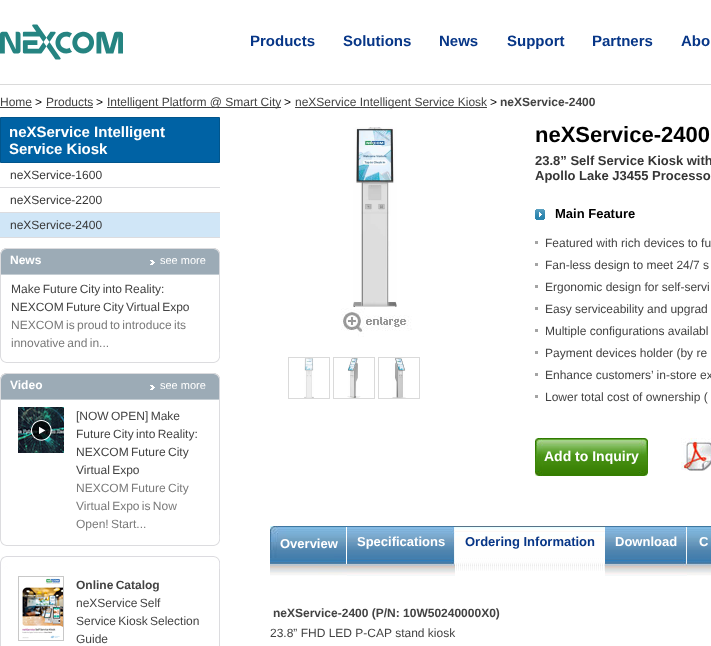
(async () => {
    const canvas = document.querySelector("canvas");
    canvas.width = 711;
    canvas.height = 646;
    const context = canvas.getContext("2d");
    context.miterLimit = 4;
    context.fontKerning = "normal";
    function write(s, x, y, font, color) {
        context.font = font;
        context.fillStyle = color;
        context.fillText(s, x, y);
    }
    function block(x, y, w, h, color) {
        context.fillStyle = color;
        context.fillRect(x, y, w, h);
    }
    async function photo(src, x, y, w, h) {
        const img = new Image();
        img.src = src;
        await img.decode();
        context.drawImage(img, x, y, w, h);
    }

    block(0, 0, 711, 646, "rgb(255, 255, 255)");
    await photo("media/1.png", 0, 24, 123, 36);
    write("Products", 250, 46, "bold 15px Liberation Sans", "rgb(7, 54, 135)");
    write("Solutions", 343, 46, "bold 15px Liberation Sans", "rgb(7, 54, 135)");
    write("News", 439, 46, "bold 15px Liberation Sans", "rgb(7, 54, 135)");
    write("Support", 507, 46, "bold 15px Liberation Sans", "rgb(7, 54, 135)");
    write("Partners", 592, 46, "bold 15px Liberation Sans", "rgb(7, 54, 135)");
    write("Abo", 681, 46, "bold 15px Liberation Sans", "rgb(7, 54, 135)");
    block(0, 84, 711, 1, "rgb(218, 218, 218)");
    write("Home", 0, 106, "12px Liberation Sans", "rgb(67, 67, 67)");
    block(0, 107, 32, 1, "rgb(67, 67, 67)");
    write(">", 35, 106, "12px Liberation Sans", "rgb(0, 0, 0)");
    write("Products", 46, 106, "12px Liberation Sans", "rgb(67, 67, 67)");
    block(46, 107, 47, 1, "rgb(67, 67, 67)");
    write(">", 96, 106, "12px Liberation Sans", "rgb(0, 0, 0)");
    block(107, 107, 174, 1, "rgb(67, 67, 67)");
    write("Intelligent Platform @ Smart City", 107, 106, "12px Liberation Sans", "rgb(67, 67, 67)");
    write(">", 284, 106, "12px Liberation Sans", "rgb(0, 0, 0)");
    block(295, 107, 192, 1, "rgb(67, 67, 67)");
    write("neXService Intelligent Service Kiosk", 295, 106, "12px Liberation Sans", "rgb(67, 67, 67)");
    write(">", 490, 106, "12px Liberation Sans", "rgb(0, 0, 0)");
    write("neXService-2400", 500, 106, "bold 12px Liberation Sans", "rgb(67, 67, 67)");
    context.fillStyle = "rgb(0, 98, 164)";
    context.beginPath();
    context.rect(0.5, 117.5, 219, 45);
    context.fill();
    context.strokeStyle = "rgb(1, 85, 140)";
    context.stroke();
    write("neXService Intelligent", 9, 137, "bold 15px Liberation Sans", "rgb(255, 255, 255)");
    write("Service Kiosk", 9, 154, "bold 15px Liberation Sans", "rgb(255, 255, 255)");
    block(0, 187, 220, 1, "rgb(220, 220, 223)");
    write("neXService-1600", 10, 179, "12px Liberation Sans", "rgb(54, 54, 54)");
    block(0, 212, 220, 1, "rgb(220, 220, 223)");
    write("neXService-2200", 10, 204, "12px Liberation Sans", "rgb(54, 54, 54)");
    block(0, 213, 220, 24, "rgb(208, 230, 247)");
    block(0, 237, 220, 1, "rgb(220, 220, 223)");
    write("neXService-2400", 10, 229, "12px Liberation Sans", "rgb(54, 54, 54)");
    await photo("media/2.png", 0, 248, 220, 27);
    write("News", 10, 264, "bold 12px Liberation Sans", "rgb(255, 255, 255)");
    await photo("media/3.png", 150, 260, 5, 5);
    write("see more", 160, 264, "11px Liberation Sans", "rgb(255, 255, 255)");
    block(219, 275, 1, 77, "rgb(220, 220, 223)");
    block(0, 275, 1, 77, "rgb(220, 220, 223)");
    context.wordSpacing = "-1px";
    write("Make Future City into Reality:", 11, 293, "12px Liberation Sans", "rgb(67, 67, 67)");
    write("NEXCOM Future City Virtual Expo", 11, 311, "12px Liberation Sans", "rgb(67, 67, 67)");
    write("NEXCOM is proud to introduce its", 11, 329, "12px Liberation Sans", "rgb(122, 122, 122)");
    write("innovative and in...", 11, 347, "12px Liberation Sans", "rgb(122, 122, 122)");
    await photo("media/4.png", 0, 352, 220, 11);
    await photo("media/2.png", 0, 373, 220, 27);
    context.wordSpacing = "0px";
    write("Video", 10, 389, "bold 12px Liberation Sans", "rgb(255, 255, 255)");
    await photo("media/3.png", 150, 385, 5, 5);
    write("see more", 160, 389, "11px Liberation Sans", "rgb(255, 255, 255)");
    block(219, 400, 1, 135, "rgb(220, 220, 223)");
    block(0, 400, 1, 135, "rgb(220, 220, 223)");
    await photo("media/5.png", 18, 407, 46, 46);
    context.wordSpacing = "-1px";
    write("[NOW OPEN] Make", 76, 420, "12px Liberation Sans", "rgb(67, 67, 67)");
    write("Future City into Reality:", 76, 438, "12px Liberation Sans", "rgb(67, 67, 67)");
    write("NEXCOM Future City", 76, 456, "12px Liberation Sans", "rgb(67, 67, 67)");
    write("Virtual Expo", 76, 474, "12px Liberation Sans", "rgb(67, 67, 67)");
    write("NEXCOM Future City", 76, 492, "12px Liberation Sans", "rgb(122, 122, 122)");
    write("Virtual Expo is Now", 76, 510, "12px Liberation Sans", "rgb(122, 122, 122)");
    write("Open! Start...", 76, 528, "12px Liberation Sans", "rgb(122, 122, 122)");
    await photo("media/4.png", 0, 535, 220, 11);
    await photo("media/6.png", 0, 556, 220, 13);
    block(219, 569, 1, 77, "rgb(220, 220, 223)");
    block(0, 569, 1, 77, "rgb(220, 220, 223)");
    await photo("media/7.png", 18, 576, 46, 65);
    write("Online Catalog", 76, 589, "bold 12px Liberation Sans", "rgb(67, 67, 67)");
    write("neXService Self", 76, 607, "12px Liberation Sans", "rgb(67, 67, 67)");
    write("Service Kiosk Selection", 76, 625, "12px Liberation Sans", "rgb(67, 67, 67)");
    context.wordSpacing = "0px";
    write("Guide", 76, 643, "12px Liberation Sans", "rgb(67, 67, 67)");
    await photo("media/8.png", 353, 127, 44, 180);
    await photo("media/9.png", 341, 308, 71, 29);
    context.strokeStyle = "rgb(218, 218, 218)";
    context.strokeRect(288.5, 357.5, 41, 41);
    await photo("media/10.png", 304, 358, 10, 40);
    context.strokeRect(333.5, 357.5, 41, 41);
    await photo("media/11.png", 347, 358, 14, 40);
    context.strokeRect(378.5, 357.5, 41, 41);
    await photo("media/12.png", 392, 358, 14, 40);
    write("neXService-2400", 535, 142, "bold 22px Liberation Sans", "rgb(0, 0, 0)");
    write("23.8” Self Service Kiosk with", 535, 165, "bold 13px Liberation Sans", "rgb(54, 54, 54)");
    write("Apollo Lake J3455 Processo", 535, 180, "bold 13px Liberation Sans", "rgb(54, 54, 54)");
    await photo("media/13.png", 535, 209, 10, 11);
    write("Main Feature", 555, 218, "bold 13px Liberation Sans", "rgb(0, 0, 0)");
    block(535, 241, 3, 3, "rgb(164, 164, 164)");
    write("Featured with rich devices to fu", 545, 247, "12px Liberation Sans", "rgb(67, 67, 67)");
    block(535, 263, 3, 3, "rgb(164, 164, 164)");
    write("Fan-less design to meet 24/7 s", 545, 269, "12px Liberation Sans", "rgb(67, 67, 67)");
    block(535, 285, 3, 3, "rgb(164, 164, 164)");
    write("Ergonomic design for self-servi", 545, 291, "12px Liberation Sans", "rgb(67, 67, 67)");
    block(535, 307, 3, 3, "rgb(164, 164, 164)");
    write("Easy serviceability and upgrad", 545, 313, "12px Liberation Sans", "rgb(67, 67, 67)");
    block(535, 329, 3, 3, "rgb(164, 164, 164)");
    write("Multiple configurations availabl", 545, 335, "12px Liberation Sans", "rgb(67, 67, 67)");
    block(535, 351, 3, 3, "rgb(164, 164, 164)");
    write("Payment devices holder (by re", 545, 357, "12px Liberation Sans", "rgb(67, 67, 67)");
    block(535, 373, 3, 3, "rgb(164, 164, 164)");
    write("Enhance customers’ in-store ex", 545, 379, "12px Liberation Sans", "rgb(67, 67, 67)");
    block(535, 395, 3, 3, "rgb(164, 164, 164)");
    write("Lower total cost of ownership (", 545, 401, "12px Liberation Sans", "rgb(67, 67, 67)");
    await photo("media/14.png", 535, 438, 113, 38);
    write("Add to Inquiry", 544, 461, "bold 14px Liberation Sans", "rgb(255, 255, 255)");
    await photo("media/15.png", 681, 438, 30, 33);
    await photo("media/16.png", 270, 526, 77, 50);
    write("Overview", 280, 548, "bold 13px Liberation Sans", "rgb(255, 255, 255)");
    await photo("media/17.png", 347, 526, 108, 50);
    write("Specifications", 357, 546, "bold 13px Liberation Sans", "rgb(255, 255, 255)");
    await photo("media/18.png", 455, 526, 150, 45);
    write("Ordering Information", 465, 546, "bold 13px Liberation Sans", "rgb(7, 54, 135)");
    await photo("media/19.png", 605, 526, 82, 50);
    write("Download", 615, 546, "bold 13px Liberation Sans", "rgb(255, 255, 255)");
    await photo("media/20.png", 687, 526, 24, 50);
    write("C", 699, 546, "bold 13px Liberation Sans", "rgb(255, 255, 255)");
    write("neXService-2400 (P/N: 10W50240000X0)", 273, 617, "bold 12px Liberation Sans", "rgb(67, 67, 67)");
    write("23.8” FHD LED P-CAP stand kiosk", 270, 637, "12px Liberation Sans", "rgb(67, 67, 67)");
})();
